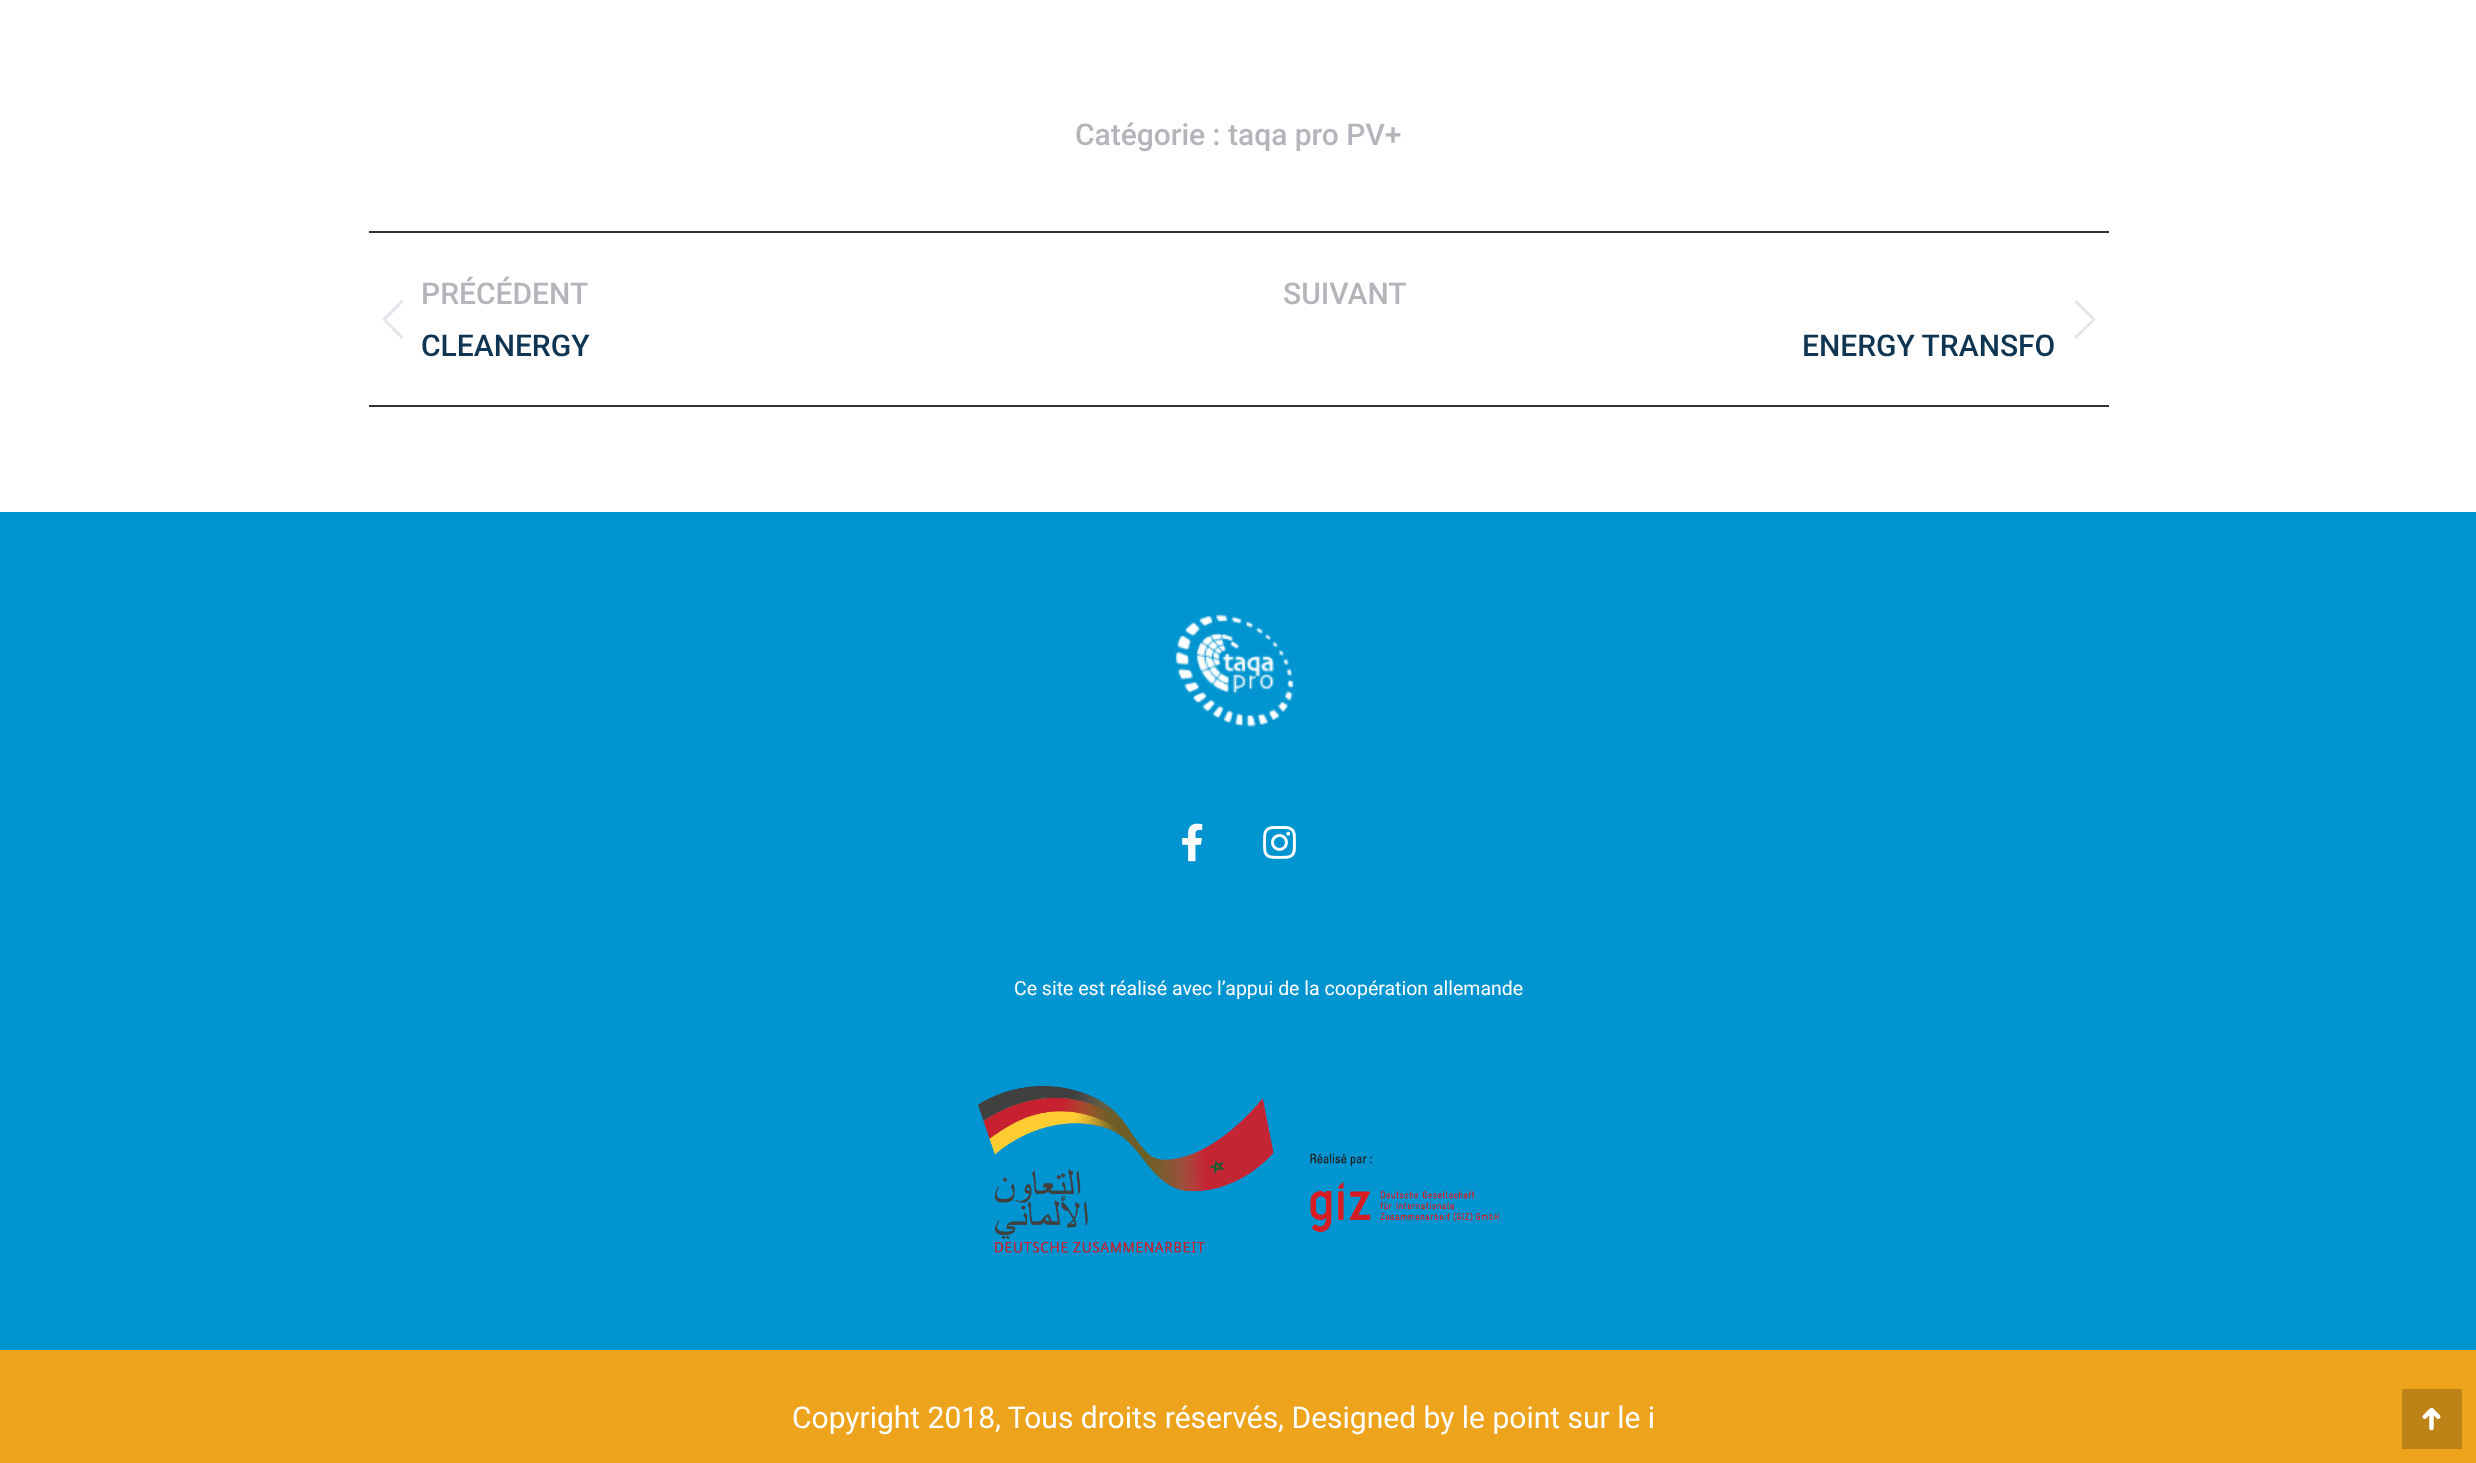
(async () => {
    const canvas = document.querySelector("canvas");
    canvas.width = 2476;
    canvas.height = 1463;
    const context = canvas.getContext("2d");
    context.miterLimit = 4;
    context.fontKerning = "normal";
    function write(s, x, y, font, color) {
        context.font = font;
        context.fillStyle = color;
        context.fillText(s, x, y);
    }
    function block(x, y, w, h, color) {
        context.fillStyle = color;
        context.fillRect(x, y, w, h);
    }
    function card(x, y, w, h, r, color) {
        context.fillStyle = color;
        context.beginPath();
        context.roundRect(x, y, w, h, r);
        context.fill();
    }
    async function photo(src, x, y, w, h) {
        const img = new Image();
        img.src = src;
        await img.decode();
        context.drawImage(img, x, y, w, h);
    }

    block(0, 0, 2476, 1463, "rgb(255, 255, 255)");
    write("Catégorie : taqa pro PV+", 1075, 145, "500 30px Roboto", "rgb(180, 181, 187)");
    block(369, 231, 1740, 2, "rgb(51, 51, 51)");
    block(369, 405, 1740, 2, "rgb(51, 51, 51)");
    write("PRÉCÉDENT", 421, 304, "500 30px Roboto", "rgb(180, 181, 187)");
    await photo("media/1.png", 382, 300, 22, 39);
    write("CLEANERGY", 421, 356, "500 30px Roboto", "rgb(15, 53, 83)");
    write("SUIVANT", 1283, 304, "500 30px Roboto", "rgb(180, 181, 187)");
    await photo("media/2.png", 2074, 300, 22, 39);
    write("ENERGY TRANSFO", 1802, 356, "500 30px Roboto", "rgb(15, 53, 83)");
    block(0, 512, 2476, 838, "rgb(0, 149, 209)");
    await photo("media/3.png", 1175, 614, 119, 113);
    await photo("media/4.png", 1182, 823, 21, 39);
    await photo("media/5.png", 1263, 826, 33, 33);
    write("Ce site est réalisé avec l’appui de la coopération allemande", 1014, 995, "19.5px Roboto", "rgb(255, 255, 255)");
    await photo("media/6.png", 978, 1086, 521, 167);
    block(0, 1350, 2476, 113, "rgb(237, 164, 28)");
    write("Copyright 2018, Tous droits réservés, Designed by le point sur le i", 792, 1428, "30px Roboto", "rgb(255, 255, 255)");
    card(2402, 1389, 60, 60, 1.5, "rgb(190, 131, 22)");
    await photo("media/7.png", 2422, 1407, 19, 24);
})();
